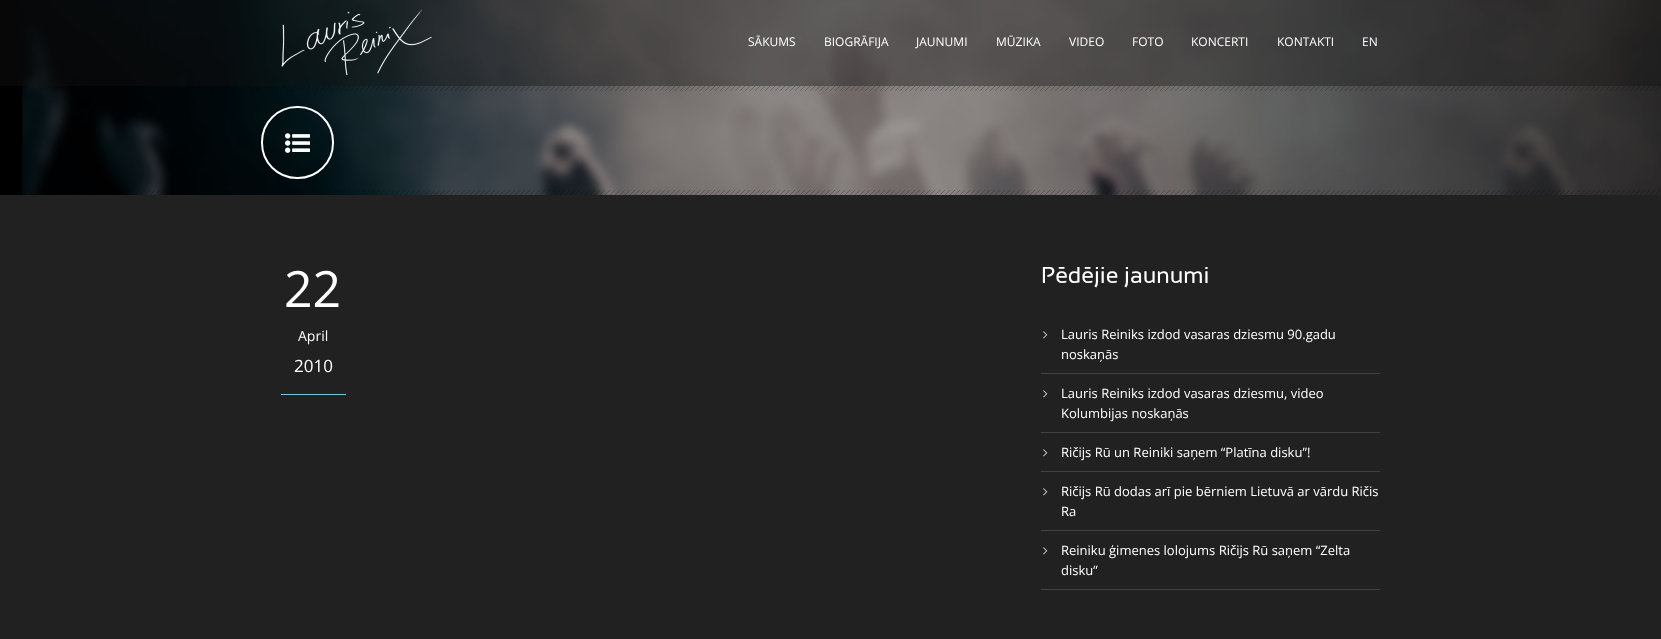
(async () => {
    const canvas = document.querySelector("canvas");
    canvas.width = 1661;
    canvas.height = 639;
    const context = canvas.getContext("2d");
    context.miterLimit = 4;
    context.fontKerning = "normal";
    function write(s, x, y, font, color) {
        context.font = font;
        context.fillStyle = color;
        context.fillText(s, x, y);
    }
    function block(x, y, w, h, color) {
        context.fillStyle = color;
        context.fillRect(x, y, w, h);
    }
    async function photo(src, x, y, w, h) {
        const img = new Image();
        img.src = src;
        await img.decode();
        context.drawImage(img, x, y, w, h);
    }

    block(0, 0, 1661, 639, "rgb(33, 33, 33)");
    await photo("media/1.png", 0, 0, 1661, 195);
    context.beginPath();
    context.roundRect(262, 107, 71, 71, 35);
    context.strokeStyle = "rgb(255, 255, 255)";
    context.lineWidth = 2;
    context.stroke();
    await photo("media/2.png", 285, 133, 25, 20);
    await photo("media/3.png", 23, 190, 1638, 5);
    block(0, 0, 1661, 86, "rgba(17, 17, 17, 0.4)");
    await photo("media/4.png", 281, 9, 151, 66);
    write("SĀKUMS", 748, 46, "12px Open Sans", "rgb(255, 255, 255)");
    write("BIOGRĀFIJA", 824, 46, "12px Open Sans", "rgb(255, 255, 255)");
    write("JAUNUMI", 916, 46, "12px Open Sans", "rgb(255, 255, 255)");
    write("MŪZIKA", 996, 46, "12px Open Sans", "rgb(255, 255, 255)");
    write("VIDEO", 1069, 46, "12px Open Sans", "rgb(255, 255, 255)");
    write("FOTO", 1132, 46, "12px Open Sans", "rgb(255, 255, 255)");
    write("KONCERTI", 1191, 46, "12px Open Sans", "rgb(255, 255, 255)");
    write("KONTAKTI", 1277, 46, "12px Open Sans", "rgb(255, 255, 255)");
    write("EN", 1362, 46, "12px Open Sans", "rgb(255, 255, 255)");
    await photo("media/5.png", 26, 86, 1635, 5);
    block(281, 394, 65, 1, "rgb(116, 198, 222)");
    write("22", 284, 307, "50px Open Sans", "rgb(255, 255, 255)");
    write("April", 298, 341, "14px Open Sans", "rgb(255, 255, 255)");
    write("2010", 294, 372, "17px Open Sans", "rgb(255, 255, 255)");
    write("Pēdējie jaunumi", 1041, 283, "23px Sansation", "rgb(255, 255, 255)");
    block(1041, 373, 339, 1, "rgb(66, 66, 66)");
    await photo("media/6.png", 1043, 331, 5, 8);
    write("Lauris Reiniks izdod vasaras dziesmu 90.gadu", 1061, 339, "13px Open Sans", "rgb(255, 255, 255)");
    write("noskaņās", 1061, 359, "13px Open Sans", "rgb(255, 255, 255)");
    block(1041, 432, 339, 1, "rgb(66, 66, 66)");
    await photo("media/6.png", 1043, 390, 5, 8);
    write("Lauris Reiniks izdod vasaras dziesmu, video", 1061, 398, "13px Open Sans", "rgb(255, 255, 255)");
    write("Kolumbijas noskaņās", 1061, 418, "13px Open Sans", "rgb(255, 255, 255)");
    block(1041, 471, 339, 1, "rgb(66, 66, 66)");
    await photo("media/6.png", 1043, 449, 5, 8);
    write("Ričijs Rū un Reiniki saņem “Platīna disku”!", 1061, 457, "13px Open Sans", "rgb(255, 255, 255)");
    block(1041, 530, 339, 1, "rgb(66, 66, 66)");
    await photo("media/6.png", 1043, 488, 5, 8);
    write("Ričijs Rū dodas arī pie bērniem Lietuvā ar vārdu Ričis", 1061, 496, "13px Open Sans", "rgb(255, 255, 255)");
    write("Ra", 1061, 516, "13px Open Sans", "rgb(255, 255, 255)");
    block(1041, 589, 339, 1, "rgb(66, 66, 66)");
    await photo("media/6.png", 1043, 547, 5, 8);
    write("Reiniku ģimenes lolojums Ričijs Rū saņem “Zelta", 1061, 555, "13px Open Sans", "rgb(255, 255, 255)");
    write("disku”", 1061, 575, "13px Open Sans", "rgb(255, 255, 255)");
})();
